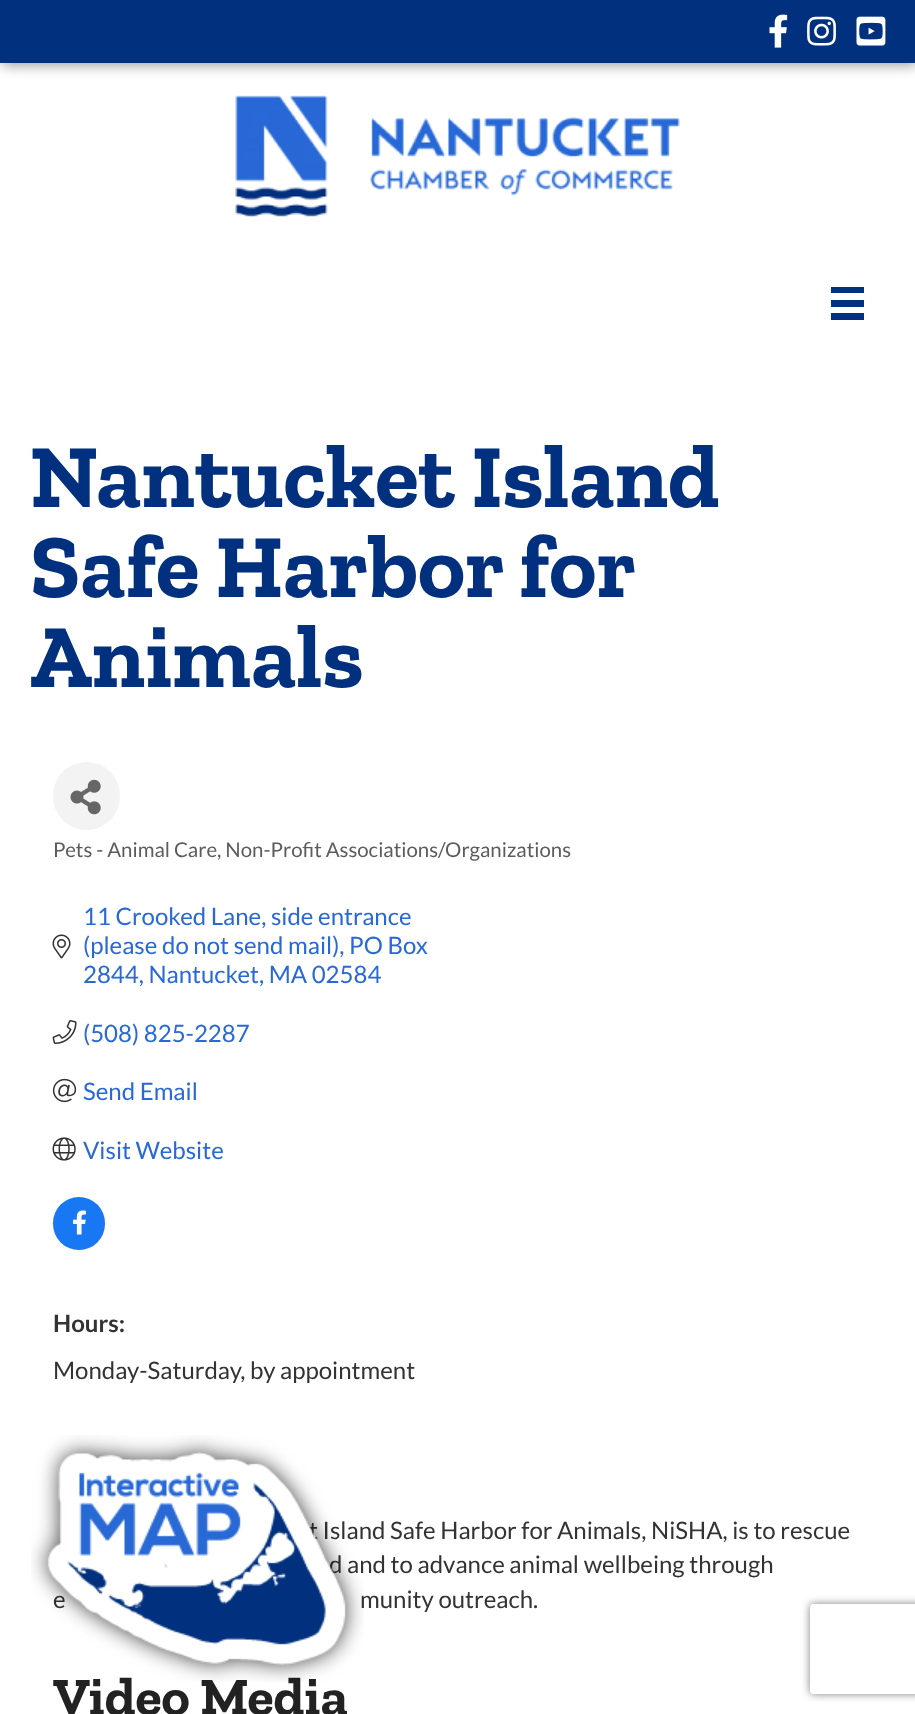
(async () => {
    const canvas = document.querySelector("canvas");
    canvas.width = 915;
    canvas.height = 1714;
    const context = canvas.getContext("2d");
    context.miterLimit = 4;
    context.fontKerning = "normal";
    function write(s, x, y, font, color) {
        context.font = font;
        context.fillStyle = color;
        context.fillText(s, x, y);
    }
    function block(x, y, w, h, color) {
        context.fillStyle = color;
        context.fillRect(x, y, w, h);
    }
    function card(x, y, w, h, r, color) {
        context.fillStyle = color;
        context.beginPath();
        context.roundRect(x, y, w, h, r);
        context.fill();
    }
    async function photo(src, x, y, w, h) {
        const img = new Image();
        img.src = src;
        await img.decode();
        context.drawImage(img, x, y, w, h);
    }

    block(0, 0, 915, 1714, "rgb(255, 255, 255)");
    context.fillStyle = "rgb(153, 153, 153)";
    context.filter = "blur(7px)";
    context.beginPath();
    context.rect(2, 2, 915, 63);
    context.fill();
    context.filter = "none";
    block(0, 0, 915, 63, "rgb(0, 48, 126)");
    await photo("media/1.png", 769, 14, 19, 34);
    await photo("media/2.png", 807, 16, 29, 30);
    await photo("media/3.png", 856, 16, 30, 30);
    await photo("media/4.png", 235, 95, 445, 122);
    block(831, 287, 33, 6, "rgb(0, 48, 126)");
    block(831, 300, 33, 7, "rgb(0, 48, 126)");
    block(831, 313, 33, 7, "rgb(0, 48, 126)");
    write("Nantucket Island", 30, 507, "bold 90px Zilla Slab", "rgb(0, 48, 126)");
    context.wordSpacing = "-1px";
    write("Safe Harbor for", 30, 597, "bold 90px Zilla Slab", "rgb(0, 48, 126)");
    context.wordSpacing = "0px";
    write("Animals", 30, 687, "bold 90px Zilla Slab", "rgb(0, 48, 126)");
    card(53, 762, 67, 68, 33.5, "rgb(243, 243, 243)");
    await photo("media/5.png", 70, 779, 31, 36);
    write("Pets - Animal Care, Non-Profit Associations/Organizations", 53, 857, "20.4px Lato", "rgb(92, 92, 92)");
    write("11 Crooked Lane, side entrance", 83, 925, "24px Lato", "rgb(40, 105, 213)");
    await photo("media/6.png", 52, 934, 19, 25);
    write("(please do not send mail), PO Box", 83, 954, "24px Lato", "rgb(40, 105, 213)");
    write("2844, Nantucket, MA 02584", 83, 983, "24px Lato", "rgb(40, 105, 213)");
    await photo("media/7.png", 52, 1020, 25, 24);
    write("(508) 825-2287", 83, 1042, "24px Lato", "rgb(40, 105, 213)");
    await photo("media/8.png", 52, 1078, 25, 25);
    write("Send Email", 83, 1100, "24px Lato", "rgb(40, 105, 213)");
    await photo("media/9.png", 52, 1137, 24, 24);
    write("Visit Website", 83, 1159, "24px Lato", "rgb(40, 105, 213)");
    card(53, 1197, 52, 53, 26, "rgb(24, 119, 242)");
    await photo("media/10.png", 73, 1210, 13, 25);
    write("Hours:", 53, 1332, "bold 24px Lato", "rgb(51, 51, 51)");
    write("Monday-Saturday, by appointment", 53, 1379, "24px Lato", "rgb(51, 51, 51)");
    write("t Island Safe Harbor for Animals, NiSHA, is to rescue", 309, 1539, "24px Lato", "rgb(51, 51, 51)");
    write("d and to advance animal wellbeing through", 329, 1573, "24px Lato", "rgb(51, 51, 51)");
    write("e", 53, 1608, "24px Lato", "rgb(51, 51, 51)");
    write("munity outreach.", 360, 1608, "24px Lato", "rgb(51, 51, 51)");
    write("Video Media", 53, 1715, "bold 54px Zilla Slab", "rgb(34, 34, 34)");
    await photo("media/11.png", 31, 1435, 333, 247);
    context.save();
    context.beginPath();
    context.moveTo(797, 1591);
    context.lineTo(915, 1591);
    context.lineTo(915, 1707);
    context.lineTo(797, 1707);
    context.closePath();
    context.moveTo(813, 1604);
    context.lineTo(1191, 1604);
    context.bezierCurveTo(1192.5, 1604, 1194, 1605.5, 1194, 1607);
    context.lineTo(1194, 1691);
    context.bezierCurveTo(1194, 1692.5, 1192.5, 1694, 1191, 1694);
    context.lineTo(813, 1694);
    context.bezierCurveTo(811.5, 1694, 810, 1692.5, 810, 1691);
    context.lineTo(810, 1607);
    context.bezierCurveTo(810, 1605.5, 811.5, 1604, 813, 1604);
    context.closePath();
    context.clip("evenodd");
    context.fillStyle = "rgb(128, 128, 128)";
    context.filter = "blur(4px)";
    context.beginPath();
    context.roundRect(810, 1604, 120, 90, 3);
    context.fill();
    context.filter = "none";
    context.restore();
})();
